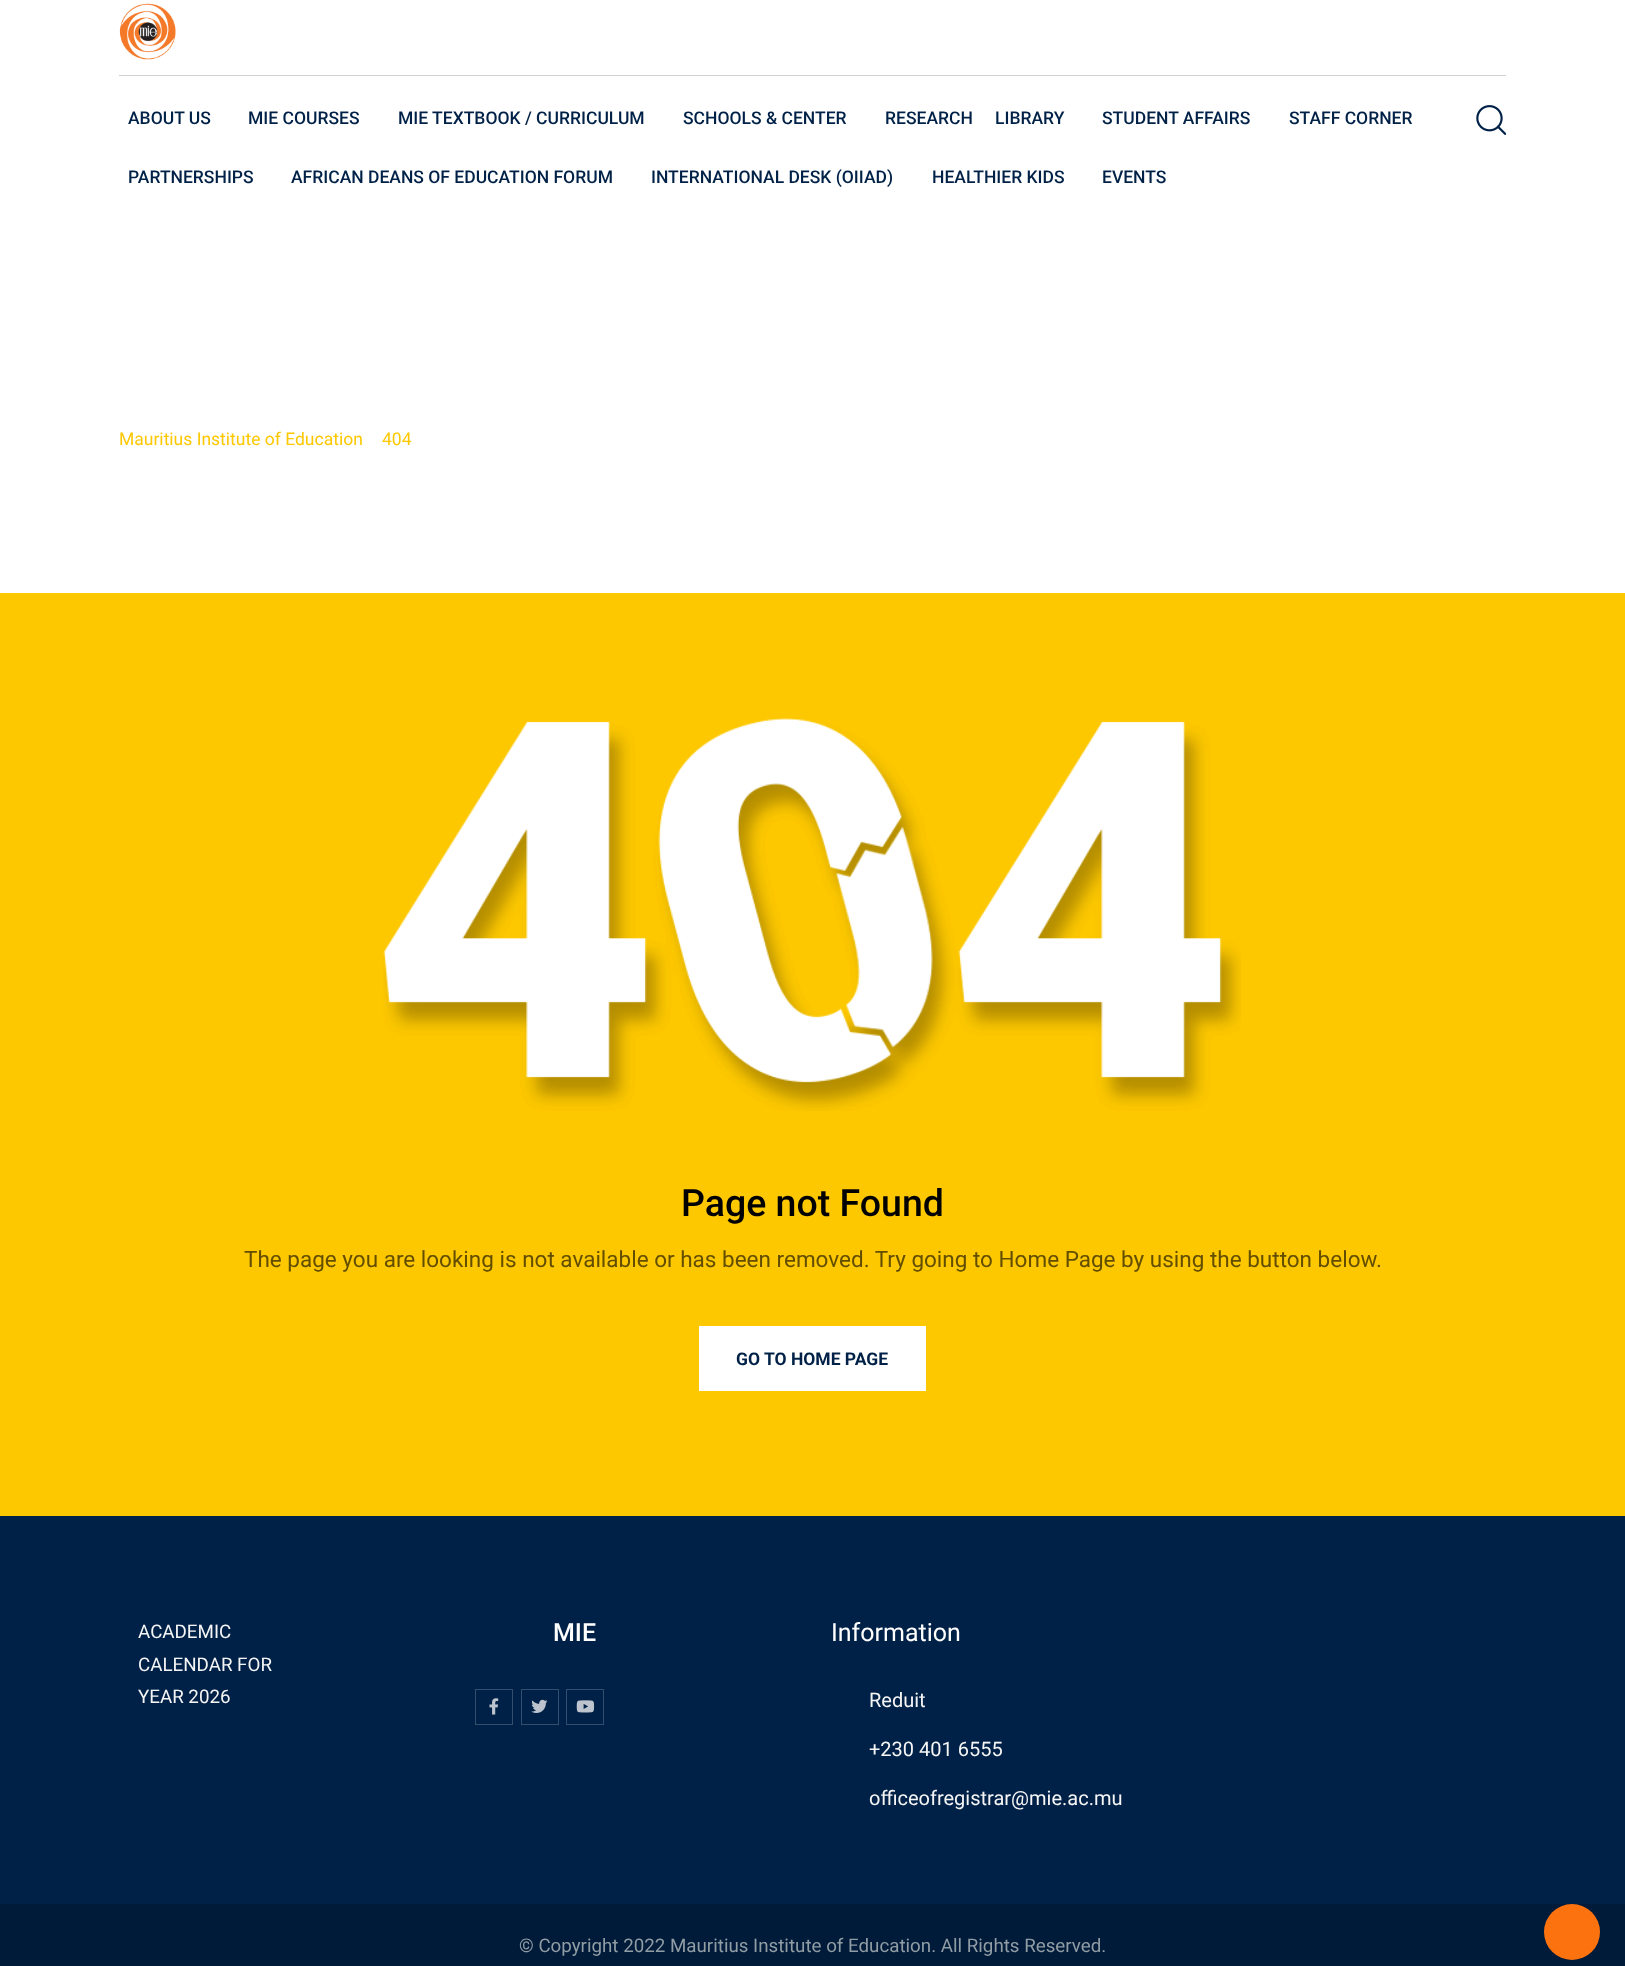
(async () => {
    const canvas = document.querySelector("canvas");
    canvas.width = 1625;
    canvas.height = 1966;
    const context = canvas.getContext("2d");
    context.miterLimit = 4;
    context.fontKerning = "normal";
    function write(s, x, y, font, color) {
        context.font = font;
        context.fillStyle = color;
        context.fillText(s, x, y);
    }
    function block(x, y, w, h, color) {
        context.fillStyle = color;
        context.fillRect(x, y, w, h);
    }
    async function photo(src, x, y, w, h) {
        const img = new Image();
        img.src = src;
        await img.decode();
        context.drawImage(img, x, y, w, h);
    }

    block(0, 0, 1625, 1966, "rgb(255, 255, 255)");
    await photo("media/1.png", 119, 3, 57, 57);
    block(119, 75, 1387, 1, "rgb(208, 208, 208)");
    write("ABOUT US", 128, 124, "500 17.5px Roboto", "rgb(0, 33, 71)");
    write("MIE COURSES", 248, 124, "500 17.5px Roboto", "rgb(0, 33, 71)");
    write("MIE TEXTBOOK / CURRICULUM", 398, 124, "500 17.5px Roboto", "rgb(0, 33, 71)");
    write("SCHOOLS & CENTER", 683, 124, "500 17.5px Roboto", "rgb(0, 33, 71)");
    write("RESEARCH", 885, 124, "500 17.5px Roboto", "rgb(0, 33, 71)");
    write("LIBRARY", 995, 124, "500 17.5px Roboto", "rgb(0, 33, 71)");
    write("STUDENT AFFAIRS", 1102, 124, "500 17.5px Roboto", "rgb(0, 33, 71)");
    write("STAFF CORNER", 1289, 124, "500 17.5px Roboto", "rgb(0, 33, 71)");
    write("PARTNERSHIPS", 128, 183, "500 17.5px Roboto", "rgb(0, 33, 71)");
    write("AFRICAN DEANS OF EDUCATION FORUM", 291, 183, "500 17.5px Roboto", "rgb(0, 33, 71)");
    write("INTERNATIONAL DESK (OIIAD)", 651, 183, "500 17.5px Roboto", "rgb(0, 33, 71)");
    write("HEALTHIER KIDS", 932, 183, "500 17.5px Roboto", "rgb(0, 33, 71)");
    write("EVENTS", 1102, 183, "500 17.5px Roboto", "rgb(0, 33, 71)");
    await photo("media/2.png", 1476, 105, 30, 30);
    write("Mauritius Institute of Education", 119, 445, "17.5px Roboto", "rgb(253, 200, 0)");
    write("404", 382, 445, "17.5px Roboto", "rgb(253, 200, 0)");
    block(0, 593, 1625, 923, "rgb(253, 200, 0)");
    await photo("media/3.png", 383, 718, 858, 393);
    write("Page not Found", 681, 1216, "500 37.5px Roboto", "rgb(0, 0, 0)");
    write("The page you are looking is not available or has been removed. Try going to Home Page by using the button below.", 244, 1267, "22.5px Roboto", "rgb(99, 78, 0)");
    block(699, 1326, 227, 65, "rgb(255, 255, 255)");
    write("GO TO HOME PAGE", 736, 1365, "bold 17.5px Roboto", "rgb(0, 33, 71)");
    block(0, 1516, 1625, 388, "rgb(0, 33, 71)");
    write("ACADEMIC", 138, 1638, "18.75px Roboto", "rgb(245, 245, 245)");
    write("CALENDAR FOR", 138, 1671, "18.75px Roboto", "rgb(245, 245, 245)");
    write("YEAR 2026", 138, 1703, "18.75px Roboto", "rgb(245, 245, 245)");
    write("MIE", 553, 1641, "500 25px Roboto", "rgb(255, 255, 255)");
    context.strokeStyle = "rgb(51, 77, 108)";
    context.strokeRect(475.5, 1689.5, 37, 35);
    await photo("media/4.png", 489, 1698, 10, 17);
    context.strokeRect(521.5, 1689.5, 37, 35);
    await photo("media/5.png", 531, 1699, 17, 14);
    context.strokeRect(566.5, 1689.5, 37, 35);
    await photo("media/6.png", 576, 1700, 19, 13);
    write("Information", 831, 1641, "25px Roboto", "rgb(255, 255, 255)");
    write("Reduit", 869, 1707, "20px Roboto", "rgb(245, 245, 245)");
    write("+230 401 6555", 869, 1756, "20px Roboto", "rgb(245, 245, 245)");
    write("officeofregistrar@mie.ac.mu", 869, 1805, "20px Roboto", "rgb(245, 245, 245)");
    block(0, 1904, 1625, 62, "rgb(0, 26, 57)");
    write("© Copyright 2022 Mauritius Institute of Education. All Rights Reserved.", 519, 1952, "18.75px Roboto", "rgb(144, 157, 164)");
    context.fillStyle = "rgb(252, 114, 15)";
    context.beginPath();
    context.arc(1572, 1932, 28, 0, Math.PI * 2);
    context.fill();
})();
